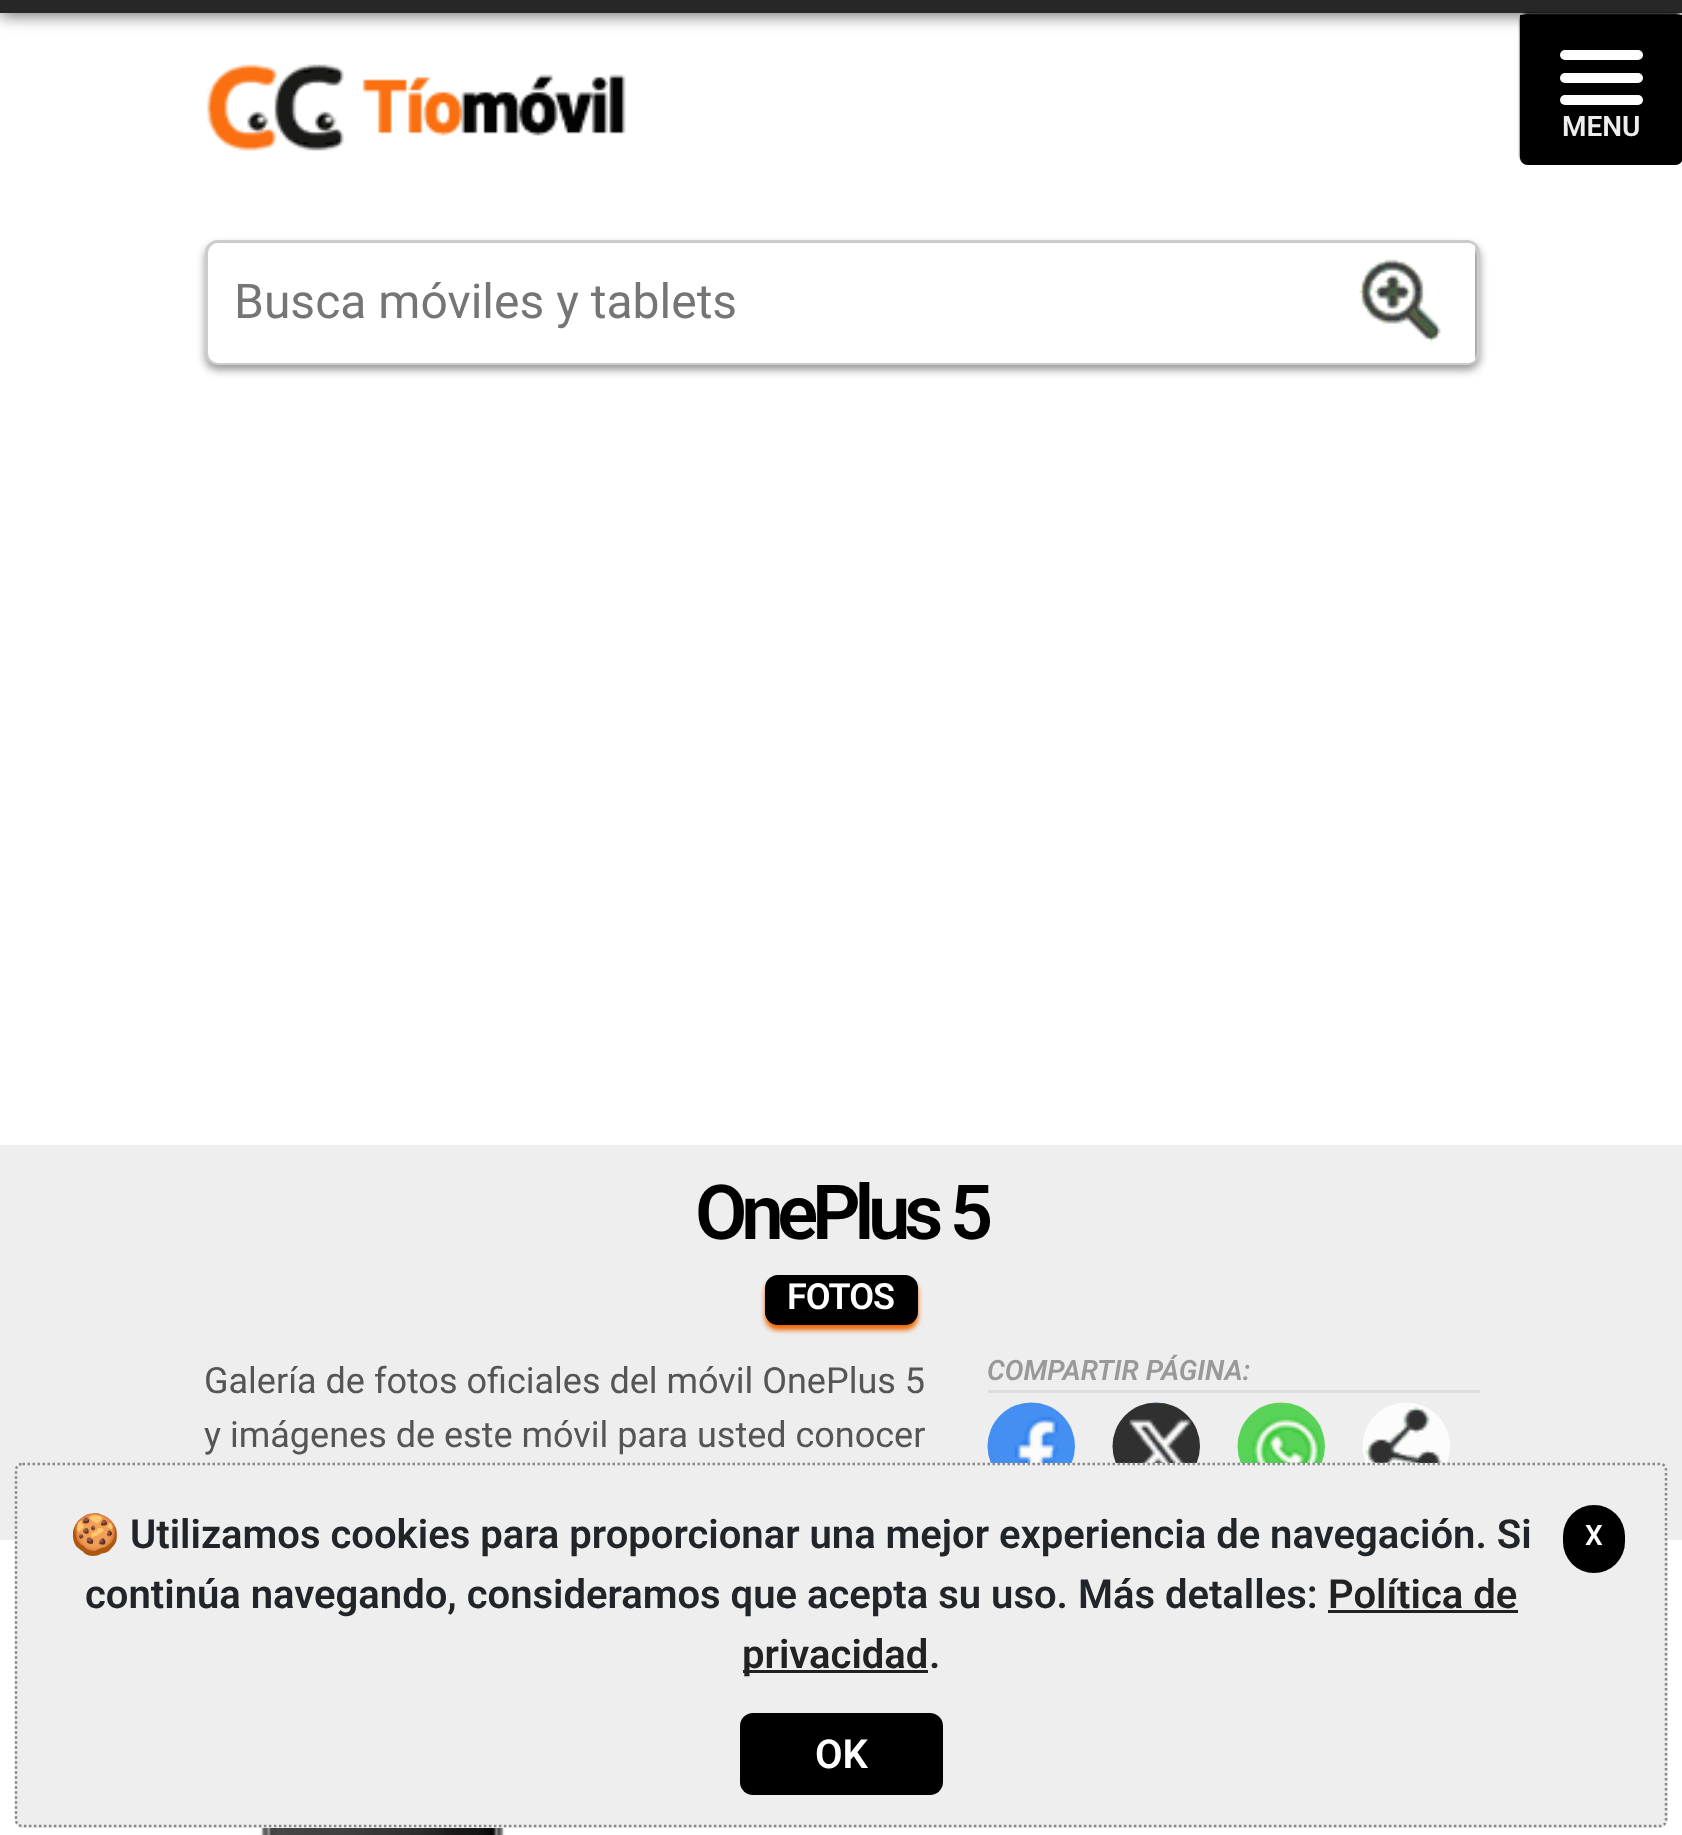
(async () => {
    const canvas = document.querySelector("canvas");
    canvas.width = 1682;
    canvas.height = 1835;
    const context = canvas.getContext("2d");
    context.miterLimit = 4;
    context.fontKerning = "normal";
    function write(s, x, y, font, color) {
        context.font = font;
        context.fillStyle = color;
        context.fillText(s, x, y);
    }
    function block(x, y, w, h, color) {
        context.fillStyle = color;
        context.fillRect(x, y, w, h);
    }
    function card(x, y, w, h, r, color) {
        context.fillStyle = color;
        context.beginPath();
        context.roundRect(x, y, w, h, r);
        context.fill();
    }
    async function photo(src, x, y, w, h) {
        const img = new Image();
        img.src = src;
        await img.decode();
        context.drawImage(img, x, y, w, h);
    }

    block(0, 0, 1682, 1835, "rgb(255, 255, 255)");
    context.fillStyle = "rgb(51, 51, 51)";
    context.filter = "blur(9px)";
    context.beginPath();
    context.rect(0, 0, 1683, 13);
    context.fill();
    context.filter = "none";
    block(0, 0, 1682, 13, "rgb(39, 39, 39)");
    context.fillStyle = "rgb(0, 0, 0)";
    context.filter = "blur(1px)";
    context.beginPath();
    context.roundRect(1520, 13, 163, 150, 8);
    context.fill();
    context.filter = "none";
    context.fillStyle = "rgb(153, 153, 153)";
    context.filter = "blur(4px)";
    context.beginPath();
    context.roundRect(205, 245, 1275, 125, 13);
    context.fill();
    context.filter = "none";
    context.beginPath();
    context.roundRect(206.5, 241.5, 1272, 122, 11.5);
    context.strokeStyle = "rgb(204, 204, 204)";
    context.lineWidth = 3;
    context.stroke();
    context.save();
    context.beginPath();
    context.roundRect(208, 243, 1270, 120, 10);
    context.clip();
    block(1325, 243, 150, 120, "rgb(255, 255, 255)");
    context.restore();
    await photo("media/2.png", 1359, 259, 82, 83);
    context.save();
    context.beginPath();
    context.moveTo(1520, 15);
    context.lineTo(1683, 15);
    context.lineTo(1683, 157);
    context.bezierCurveTo(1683, 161.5, 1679.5, 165, 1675, 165);
    context.lineTo(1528, 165);
    context.bezierCurveTo(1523.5, 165, 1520, 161.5, 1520, 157);
    context.closePath();
    context.clip();
    context.fillStyle = "rgb(170, 170, 170)";
    context.filter = "blur(35px)";
    context.beginPath();
    context.roundRect(1520, 15, 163, 150, 8);
    context.fill();
    context.filter = "none";
    context.restore();
    context.fillStyle = "rgb(0, 0, 0)";
    context.beginPath();
    context.moveTo(1520, 15);
    context.lineTo(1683, 15);
    context.lineTo(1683, 157);
    context.bezierCurveTo(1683, 161.5, 1679.5, 165, 1675, 165);
    context.lineTo(1528, 165);
    context.bezierCurveTo(1523.5, 165, 1520, 161.5, 1520, 157);
    context.closePath();
    context.fill();
    card(1560, 50, 83, 10, 5, "rgb(255, 255, 255)");
    card(1560, 73, 83, 10, 5, "rgb(255, 255, 255)");
    card(1560, 95, 83, 10, 5, "rgb(255, 255, 255)");
    write("MENU", 1562, 136, "600 28px Roboto", "rgb(238, 238, 238)");
    await photo("media/1.png", 206, 64, 420, 87);
    context.fillStyle = "rgb(255, 255, 255)";
    context.beginPath();
    context.roundRect(208, 243, 1117, 120, [10, 0, 0, 10]);
    context.fill();
    write("Busca móviles y tablets", 234, 318, "48px Roboto", "rgb(117, 117, 117)");
    block(0, 1145, 1682, 395, "rgb(238, 238, 238)");
    context.letterSpacing = "-6.25px";
    write("OnePlus 5", 695, 1239, "600 76px Roboto", "rgb(0, 0, 0)");
    context.fillStyle = "rgb(238, 102, 0)";
    context.filter = "blur(2.5px)";
    context.beginPath();
    context.roundRect(765, 1280, 153, 50, 13);
    context.fill();
    context.filter = "none";
    card(765, 1275, 153, 50, 13, "rgb(0, 0, 0)");
    context.letterSpacing = "-1px";
    write("FOTOS", 787, 1309, "600 36px Roboto", "rgb(255, 255, 255)");
    context.letterSpacing = "0px";
    write("Galería de fotos oficiales del móvil OnePlus 5", 204, 1393, "36px Roboto", "rgb(85, 85, 85)");
    write("y imágenes de este móvil para usted conocer", 204, 1447, "36px Roboto", "rgb(85, 85, 85)");
    block(988, 1390, 492, 3, "rgb(221, 221, 221)");
    write("COMPARTIR PÁGINA:", 987, 1380, "italic 600 28px Roboto", "rgb(153, 153, 153)");
    await photo("media/3.png", 987, 1402, 88, 61);
    await photo("media/4.png", 1112, 1402, 88, 61);
    await photo("media/5.png", 1237, 1402, 88, 61);
    await photo("media/6.png", 1362, 1402, 88, 61);
    await photo("media/7.png", 253, 1828, 252, 7);
    card(15, 1463, 1653, 365, 8, "rgb(238, 238, 238)");
    context.beginPath();
    context.moveTo(22.5, 1464);
    context.lineTo(1660, 1464);
    context.bezierCurveTo(1663.5, 1464, 1666, 1466.5, 1666, 1470);
    context.lineTo(1666, 1820);
    context.bezierCurveTo(1666, 1823.5, 1663.5, 1826, 1660, 1826);
    context.lineTo(22.5, 1826);
    context.bezierCurveTo(19, 1826, 16, 1823.5, 16, 1820);
    context.lineTo(16, 1470);
    context.bezierCurveTo(16, 1466.5, 19, 1464, 22.5, 1464);
    context.closePath();
    context.strokeStyle = "rgb(136, 136, 136)";
    context.lineWidth = 2.5;
    context.setLineDash([2.5, 2.5]);
    context.stroke();
    write("🍪", 70, 1548, "40px Noto Color Emoji", "rgb(33, 37, 41)");
    write("Utilizamos cookies para proporcionar una mejor experiencia de navegación. Si", 130, 1548, "600 40px Roboto", "rgb(33, 37, 41)");
    write("continúa navegando, consideramos que acepta su uso. Más detalles:", 85, 1608, "600 40px Roboto", "rgb(33, 37, 41)");
    write("Política de", 1328, 1608, "600 40px Roboto", "rgb(34, 34, 34)");
    block(1328, 1610, 190, 3, "rgb(34, 34, 34)");
    block(743, 1670, 185, 3, "rgb(34, 34, 34)");
    write("privacidad", 742, 1668, "600 40px Roboto", "rgb(34, 34, 34)");
    write(".", 929, 1668, "600 40px Roboto", "rgb(33, 37, 41)");
    card(1563, 1505, 62, 68, 31, "rgb(0, 0, 0)");
    write("X", 1585, 1545, "600 28px Roboto", "rgb(255, 255, 255)");
    card(740, 1713, 203, 82, 13, "rgb(0, 0, 0)");
    write("OK", 815, 1768, "600 40px Roboto", "rgb(255, 255, 255)");
})();
